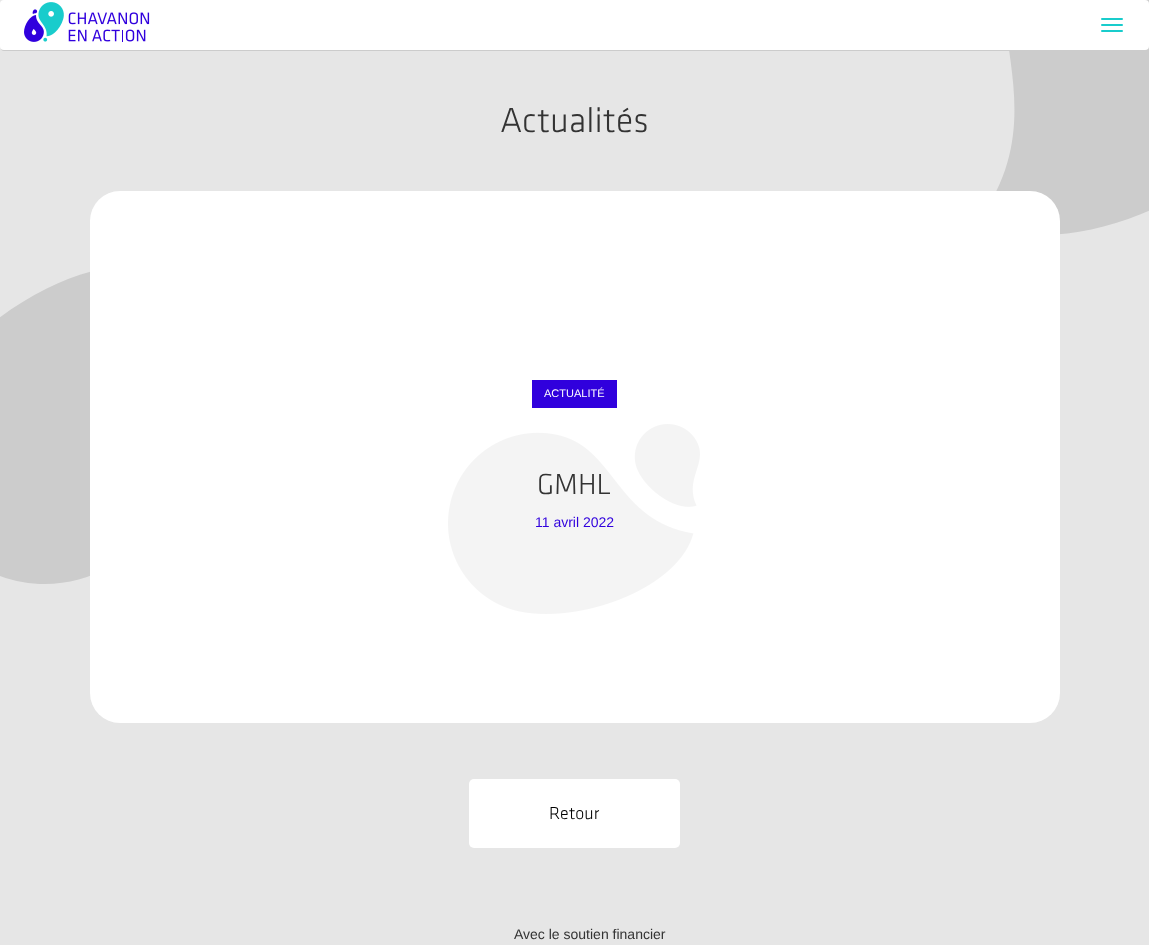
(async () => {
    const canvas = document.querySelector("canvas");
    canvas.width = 1149;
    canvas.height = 945;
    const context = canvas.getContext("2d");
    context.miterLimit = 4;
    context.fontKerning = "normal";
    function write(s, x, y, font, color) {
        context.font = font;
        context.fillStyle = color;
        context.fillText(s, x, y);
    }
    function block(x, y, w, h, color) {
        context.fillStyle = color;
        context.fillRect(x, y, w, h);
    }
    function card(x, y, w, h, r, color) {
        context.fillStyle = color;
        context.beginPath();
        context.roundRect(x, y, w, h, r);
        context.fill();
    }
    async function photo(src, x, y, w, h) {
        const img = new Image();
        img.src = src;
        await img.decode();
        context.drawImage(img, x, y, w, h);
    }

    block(0, 0, 1149, 945, "rgb(230, 230, 230)");
    await photo("media/1.png", 0, 0, 1149, 584);
    context.fillStyle = "rgb(204, 204, 204)";
    context.filter = "blur(0.5px)";
    context.beginPath();
    context.roundRect(1, 3, 1147, 48, 3);
    context.fill();
    context.filter = "none";
    card(0, 0, 1149, 50, 4, "rgb(255, 255, 255)");
    await photo("media/2.png", 24, 2, 126, 40);
    card(1101, 18, 22, 2, 1, "rgb(25, 204, 204)");
    card(1101, 24, 22, 2, 1, "rgb(25, 204, 204)");
    card(1101, 30, 22, 2, 1, "rgb(25, 204, 204)");
    write("Actualités", 500, 132, "300 36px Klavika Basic", "rgb(51, 51, 51)");
    card(90, 191, 970, 532, 30, "rgb(255, 255, 255)");
    block(532, 380, 85, 28, "rgb(48, 0, 221)");
    write("ACTUALITÉ", 544, 397, "11px Liberation Sans", "rgb(255, 255, 255)");
    await photo("media/3.png", 448, 424, 252, 190);
    write("GMHL", 537, 494, "300 30px Klavika Basic", "rgb(51, 51, 51)");
    write("11 avril 2022", 535, 527, "14px Liberation Sans", "rgb(48, 0, 221)");
    card(469, 779, 211, 69, 5, "rgb(255, 255, 255)");
    write("Retour", 549, 819, "300 18px Klavika Basic", "rgb(0, 0, 0)");
    write("Avec le soutien financier", 514, 939, "14px Liberation Sans", "rgb(51, 51, 51)");
})();
